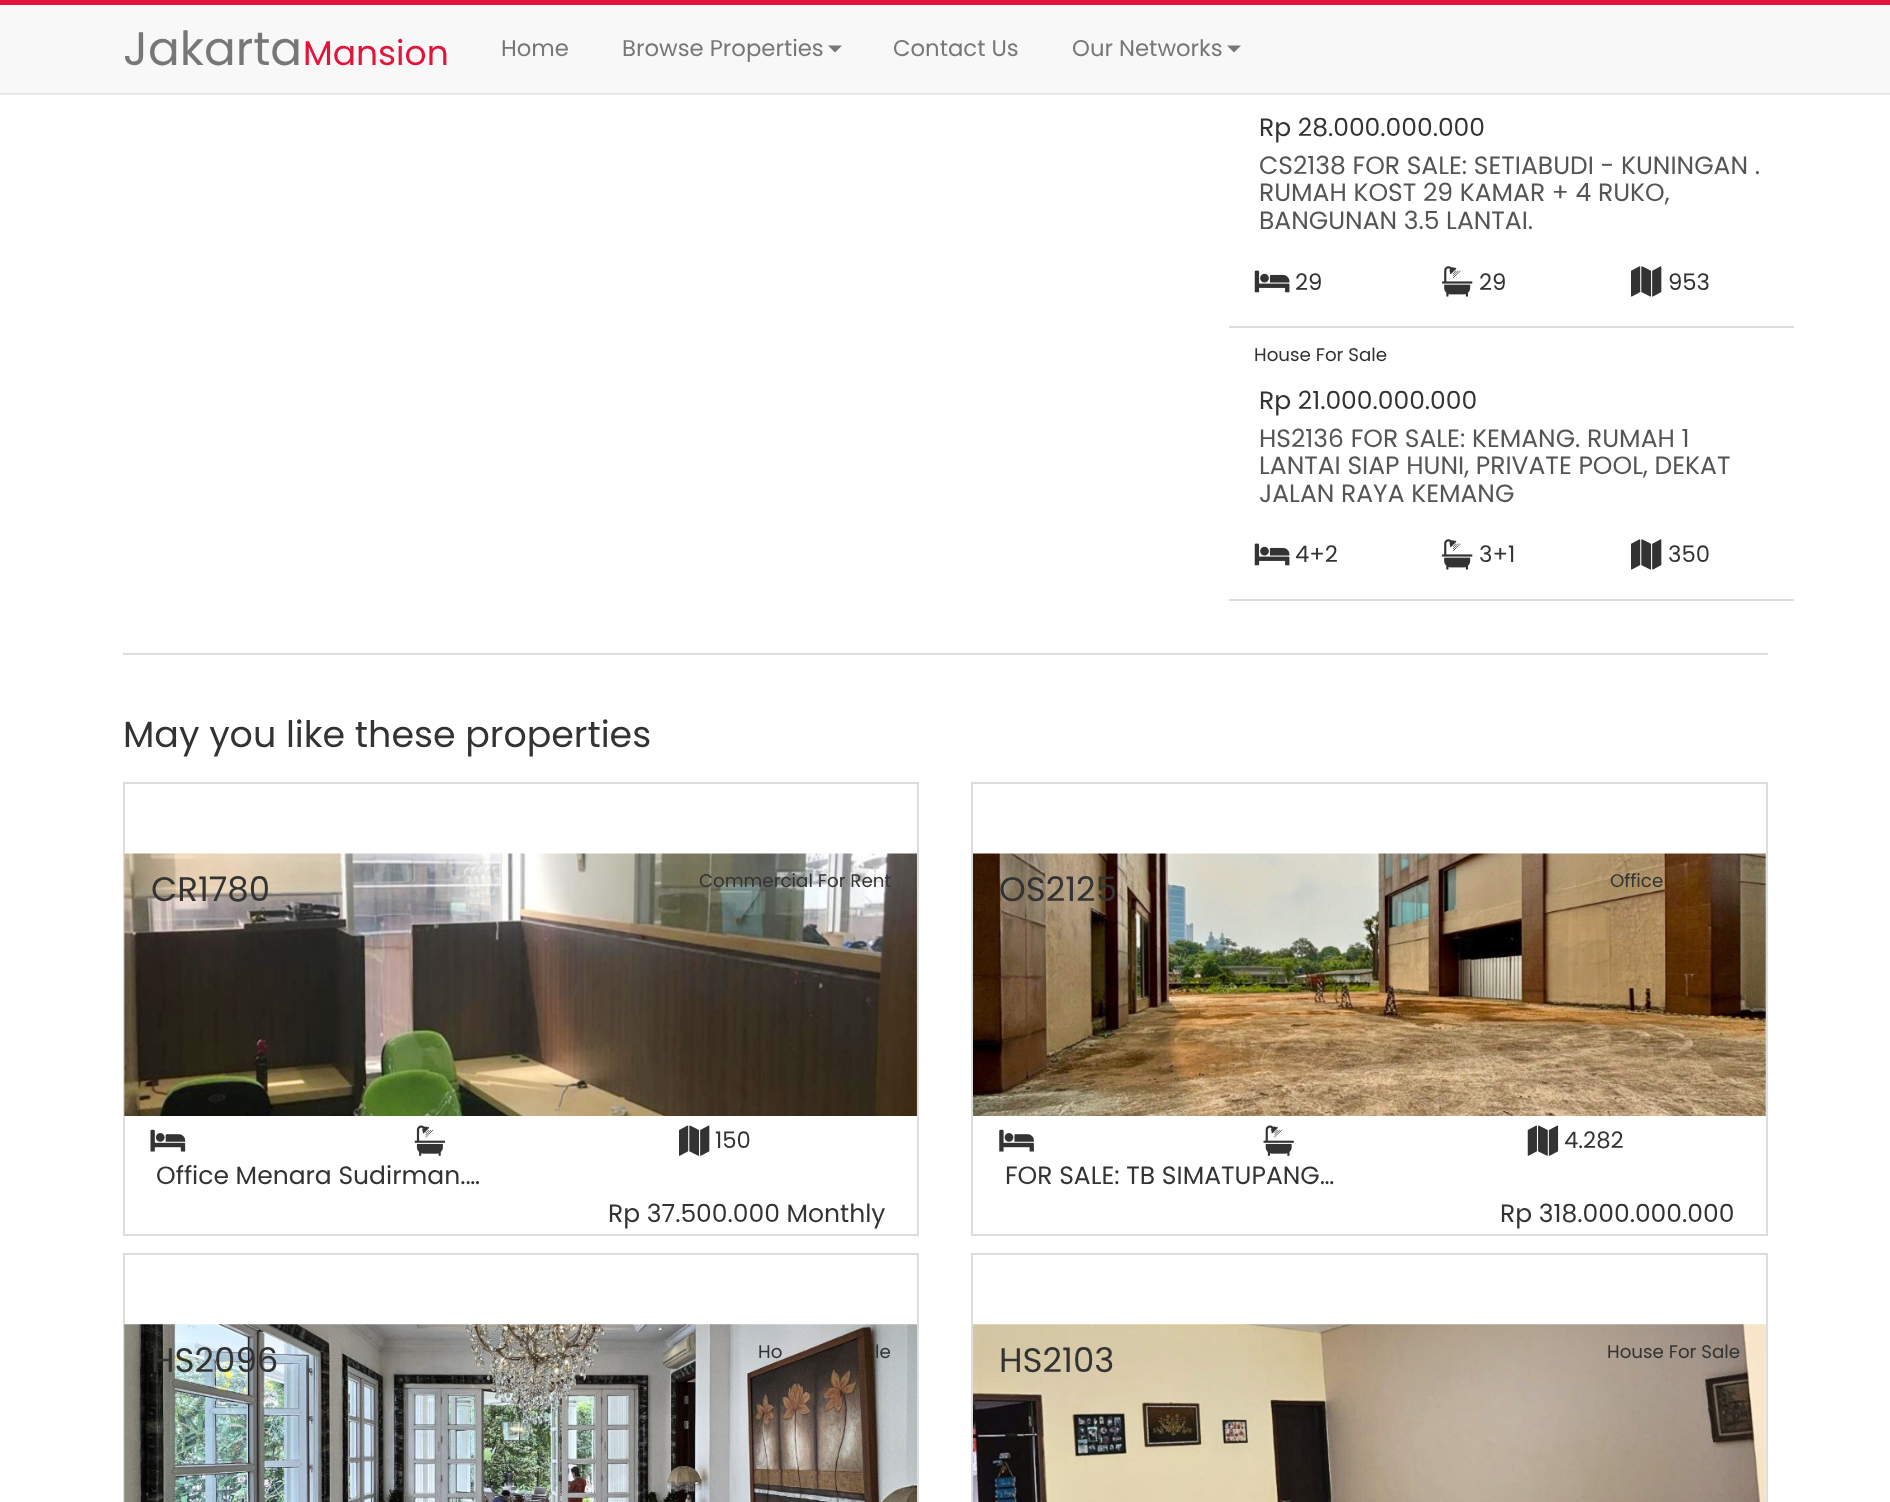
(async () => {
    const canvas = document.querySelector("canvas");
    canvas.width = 1890;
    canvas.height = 1502;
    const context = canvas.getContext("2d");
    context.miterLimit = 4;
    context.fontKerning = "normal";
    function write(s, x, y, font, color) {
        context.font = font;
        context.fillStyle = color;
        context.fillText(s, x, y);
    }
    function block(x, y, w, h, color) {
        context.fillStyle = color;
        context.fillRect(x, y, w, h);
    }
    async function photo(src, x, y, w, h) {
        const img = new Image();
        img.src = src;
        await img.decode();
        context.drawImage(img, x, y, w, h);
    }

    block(0, 0, 1890, 1502, "rgb(255, 255, 255)");
    block(0, 5, 1890, 88, "rgb(248, 248, 248)");
    block(0, 0, 1890, 5, "rgb(228, 19, 59)");
    block(0, 93, 1890, 2, "rgb(231, 231, 231)");
    write("Jakarta", 123, 65, "47px Poppins", "rgb(119, 119, 119)");
    write("Mansion", 303, 65, "34.5px Poppins", "rgb(228, 19, 59)");
    write("Home", 501, 56, "22.75px Poppins", "rgb(119, 119, 119)");
    write("Browse Properties", 622, 56, "22.75px Poppins", "rgb(119, 119, 119)");
    context.beginPath();
    context.moveTo(828, 45.5);
    context.lineTo(842, 45.5);
    context.lineTo(835, 52.5);
    context.closePath();
    context.fill();
    write("Contact Us", 893, 56, "22.75px Poppins", "rgb(119, 119, 119)");
    write("Our Networks", 1072, 56, "22.75px Poppins", "rgb(119, 119, 119)");
    context.beginPath();
    context.moveTo(1227, 45.5);
    context.lineTo(1241, 45.5);
    context.lineTo(1234, 52.5);
    context.closePath();
    context.fill();
    write("Rp 28.000.000.000", 1259, 136, "25px Poppins", "rgb(51, 51, 51)");
    write("CS2138 FOR SALE: SETIABUDI - KUNINGAN .", 1259, 174, "25px Poppins", "rgb(85, 85, 85)");
    write("RUMAH KOST 29 KAMAR + 4 RUKO,", 1259, 201, "25px Poppins", "rgb(85, 85, 85)");
    write("BANGUNAN 3.5 LANTAI.", 1259, 229, "25px Poppins", "rgb(85, 85, 85)");
    block(1229, 326, 565, 2, "rgb(221, 221, 221)");
    await photo("media/1.png", 1254, 270, 36, 23);
    write("29", 1295, 290, "22.75px Poppins", "rgb(51, 51, 51)");
    await photo("media/2.png", 1442, 266, 31, 31);
    write("29", 1479, 290, "22.75px Poppins", "rgb(51, 51, 51)");
    await photo("media/3.png", 1631, 266, 31, 31);
    write("953", 1668, 290, "22.75px Poppins", "rgb(51, 51, 51)");
    write("House For Sale", 1254, 361, "18.25px Poppins", "rgb(51, 51, 51)");
    write("Rp 21.000.000.000", 1259, 409, "25px Poppins", "rgb(51, 51, 51)");
    write("HS2136 FOR SALE: KEMANG. RUMAH 1", 1259, 447, "25px Poppins", "rgb(85, 85, 85)");
    write("LANTAI SIAP HUNI, PRIVATE POOL, DEKAT", 1259, 474, "25px Poppins", "rgb(85, 85, 85)");
    write("JALAN RAYA KEMANG", 1259, 502, "25px Poppins", "rgb(85, 85, 85)");
    block(1229, 599, 565, 2, "rgb(221, 221, 221)");
    await photo("media/1.png", 1254, 543, 36, 23);
    write("4+2", 1295, 562, "22.75px Poppins", "rgb(51, 51, 51)");
    await photo("media/2.png", 1442, 539, 31, 31);
    write("3+1", 1479, 562, "22.75px Poppins", "rgb(51, 51, 51)");
    await photo("media/3.png", 1631, 539, 31, 31);
    write("350", 1668, 562, "22.75px Poppins", "rgb(51, 51, 51)");
    block(123, 653, 1645, 2, "rgb(221, 221, 221)");
    write("May you like these properties", 123, 747, "36.4px Poppins", "rgb(51, 51, 51)");
    context.strokeStyle = "rgb(221, 221, 221)";
    context.lineWidth = 2;
    context.strokeRect(124, 783, 794, 452);
    await photo("media/4.png", 124, 853, 793, 263);
    write("CR1780", 151, 901, "34px Poppins", "rgb(51, 51, 51)");
    write("Commercial For Rent", 699, 887, "18.25px Poppins", "rgb(51, 51, 51)");
    await photo("media/5.png", 150, 1129, 36, 23);
    await photo("media/6.png", 414, 1125, 32, 31);
    await photo("media/7.png", 679, 1125, 31, 31);
    write("150", 715, 1148, "22.75px Poppins", "rgb(51, 51, 51)");
    write("Office Menara Sudirman.…", 156, 1184, "25px Poppins", "rgb(51, 51, 51)");
    write("Rp 37.500.000 Monthly", 608, 1222, "25px Poppins", "rgb(51, 51, 51)");
    context.strokeRect(972, 783, 795, 452);
    await photo("media/8.png", 973, 853, 793, 263);
    write("OS2125", 999, 901, "34px Poppins", "rgb(51, 51, 51)");
    write("Office", 1610, 887, "18.25px Poppins", "rgb(51, 51, 51)");
    await photo("media/9.png", 999, 1129, 35, 23);
    await photo("media/10.png", 1263, 1125, 31, 31);
    await photo("media/11.png", 1527, 1125, 32, 31);
    write("4.282", 1564, 1148, "22.75px Poppins", "rgb(51, 51, 51)");
    write("FOR SALE: TB SIMATUPANG…", 1005, 1184, "25px Poppins", "rgb(51, 51, 51)");
    write("Rp 318.000.000.000", 1500, 1222, "25px Poppins", "rgb(51, 51, 51)");
    context.strokeRect(124, 1254, 794, 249);
    await photo("media/12.png", 124, 1324, 793, 178);
    write("HS2096", 151, 1372, "34px Poppins", "rgb(51, 51, 51)");
    write("Ho", 758, 1358, "18.25px Poppins", "rgb(51, 51, 51)");
    write("le", 875, 1358, "18.25px Poppins", "rgb(51, 51, 51)");
    context.strokeRect(972, 1254, 795, 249);
    await photo("media/13.png", 973, 1324, 793, 178);
    write("HS2103", 999, 1372, "34px Poppins", "rgb(51, 51, 51)");
    write("House For Sale", 1607, 1358, "18.25px Poppins", "rgb(51, 51, 51)");
})();
